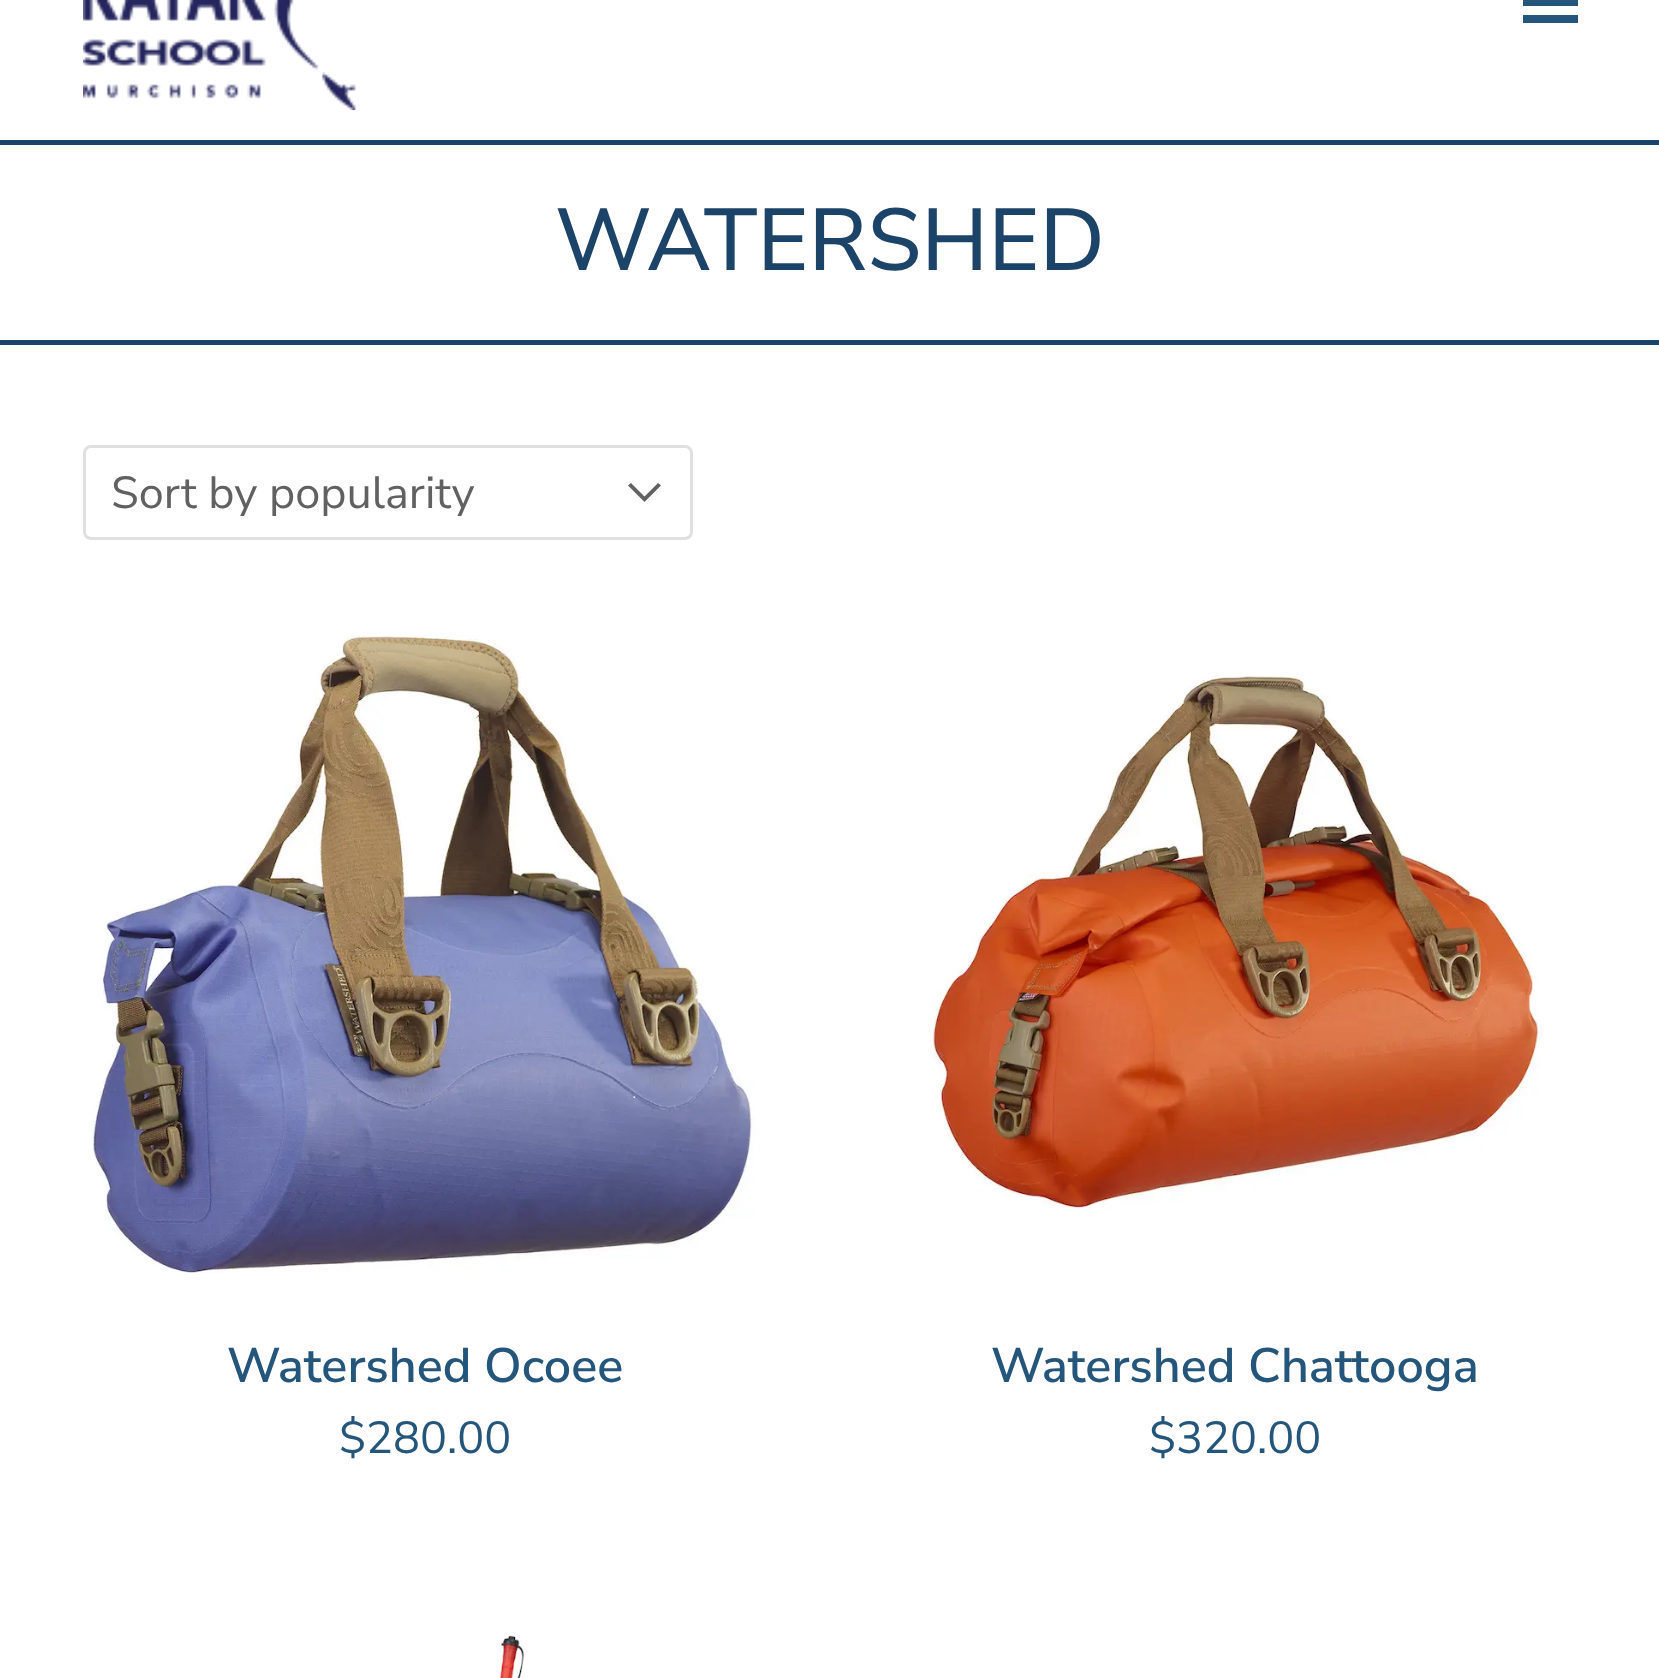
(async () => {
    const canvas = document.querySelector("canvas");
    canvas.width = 1659;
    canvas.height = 1678;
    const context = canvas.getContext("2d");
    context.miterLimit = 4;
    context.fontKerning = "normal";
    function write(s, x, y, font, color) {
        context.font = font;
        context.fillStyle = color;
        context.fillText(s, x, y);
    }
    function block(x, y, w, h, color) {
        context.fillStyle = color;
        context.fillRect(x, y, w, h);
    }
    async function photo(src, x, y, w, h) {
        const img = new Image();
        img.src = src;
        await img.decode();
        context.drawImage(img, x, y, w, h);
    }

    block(0, 0, 1659, 1678, "rgb(255, 255, 255)");
    await photo("media/1.png", 83, 0, 273, 110);
    block(1523, 0, 55, 6, "rgb(36, 86, 123)");
    block(1523, 15, 55, 8, "rgb(36, 86, 123)");
    block(0, 140, 1659, 5, "rgb(28, 68, 104)");
    block(0, 340, 1659, 5, "rgb(28, 68, 104)");
    write("WATERSHED", 555, 270, "500 87.5px Nunito Sans", "rgb(28, 68, 104)");
    context.beginPath();
    context.roundRect(84.5, 446.5, 607, 92, 6.5);
    context.strokeStyle = "rgb(224, 224, 224)";
    context.lineWidth = 3;
    context.stroke();
    write("Sort by popularity", 111, 508, "45px Nunito Sans", "rgb(97, 97, 97)");
    context.beginPath();
    context.moveTo(631, 483);
    context.lineTo(628, 485.5);
    context.lineTo(644.5, 502);
    context.lineTo(661, 485.5);
    context.lineTo(658, 483);
    context.lineTo(644.5, 496.5);
    context.closePath();
    context.fill();
    await photo("media/2.png", 89, 635, 665, 638);
    write("Watershed Ocoee", 227, 1382, "600 48.5px Nunito Sans", "rgb(36, 86, 123)");
    write("$280.00", 339, 1453, "45px Nunito Sans", "rgb(36, 86, 123)");
    await photo("media/3.png", 932, 675, 612, 539);
    write("Watershed Chattooga", 991, 1382, "600 48.5px Nunito Sans", "rgb(36, 86, 123)");
    write("$320.00", 1149, 1453, "45px Nunito Sans", "rgb(36, 86, 123)");
    await photo("media/4.png", 499, 1635, 26, 43);
})();
